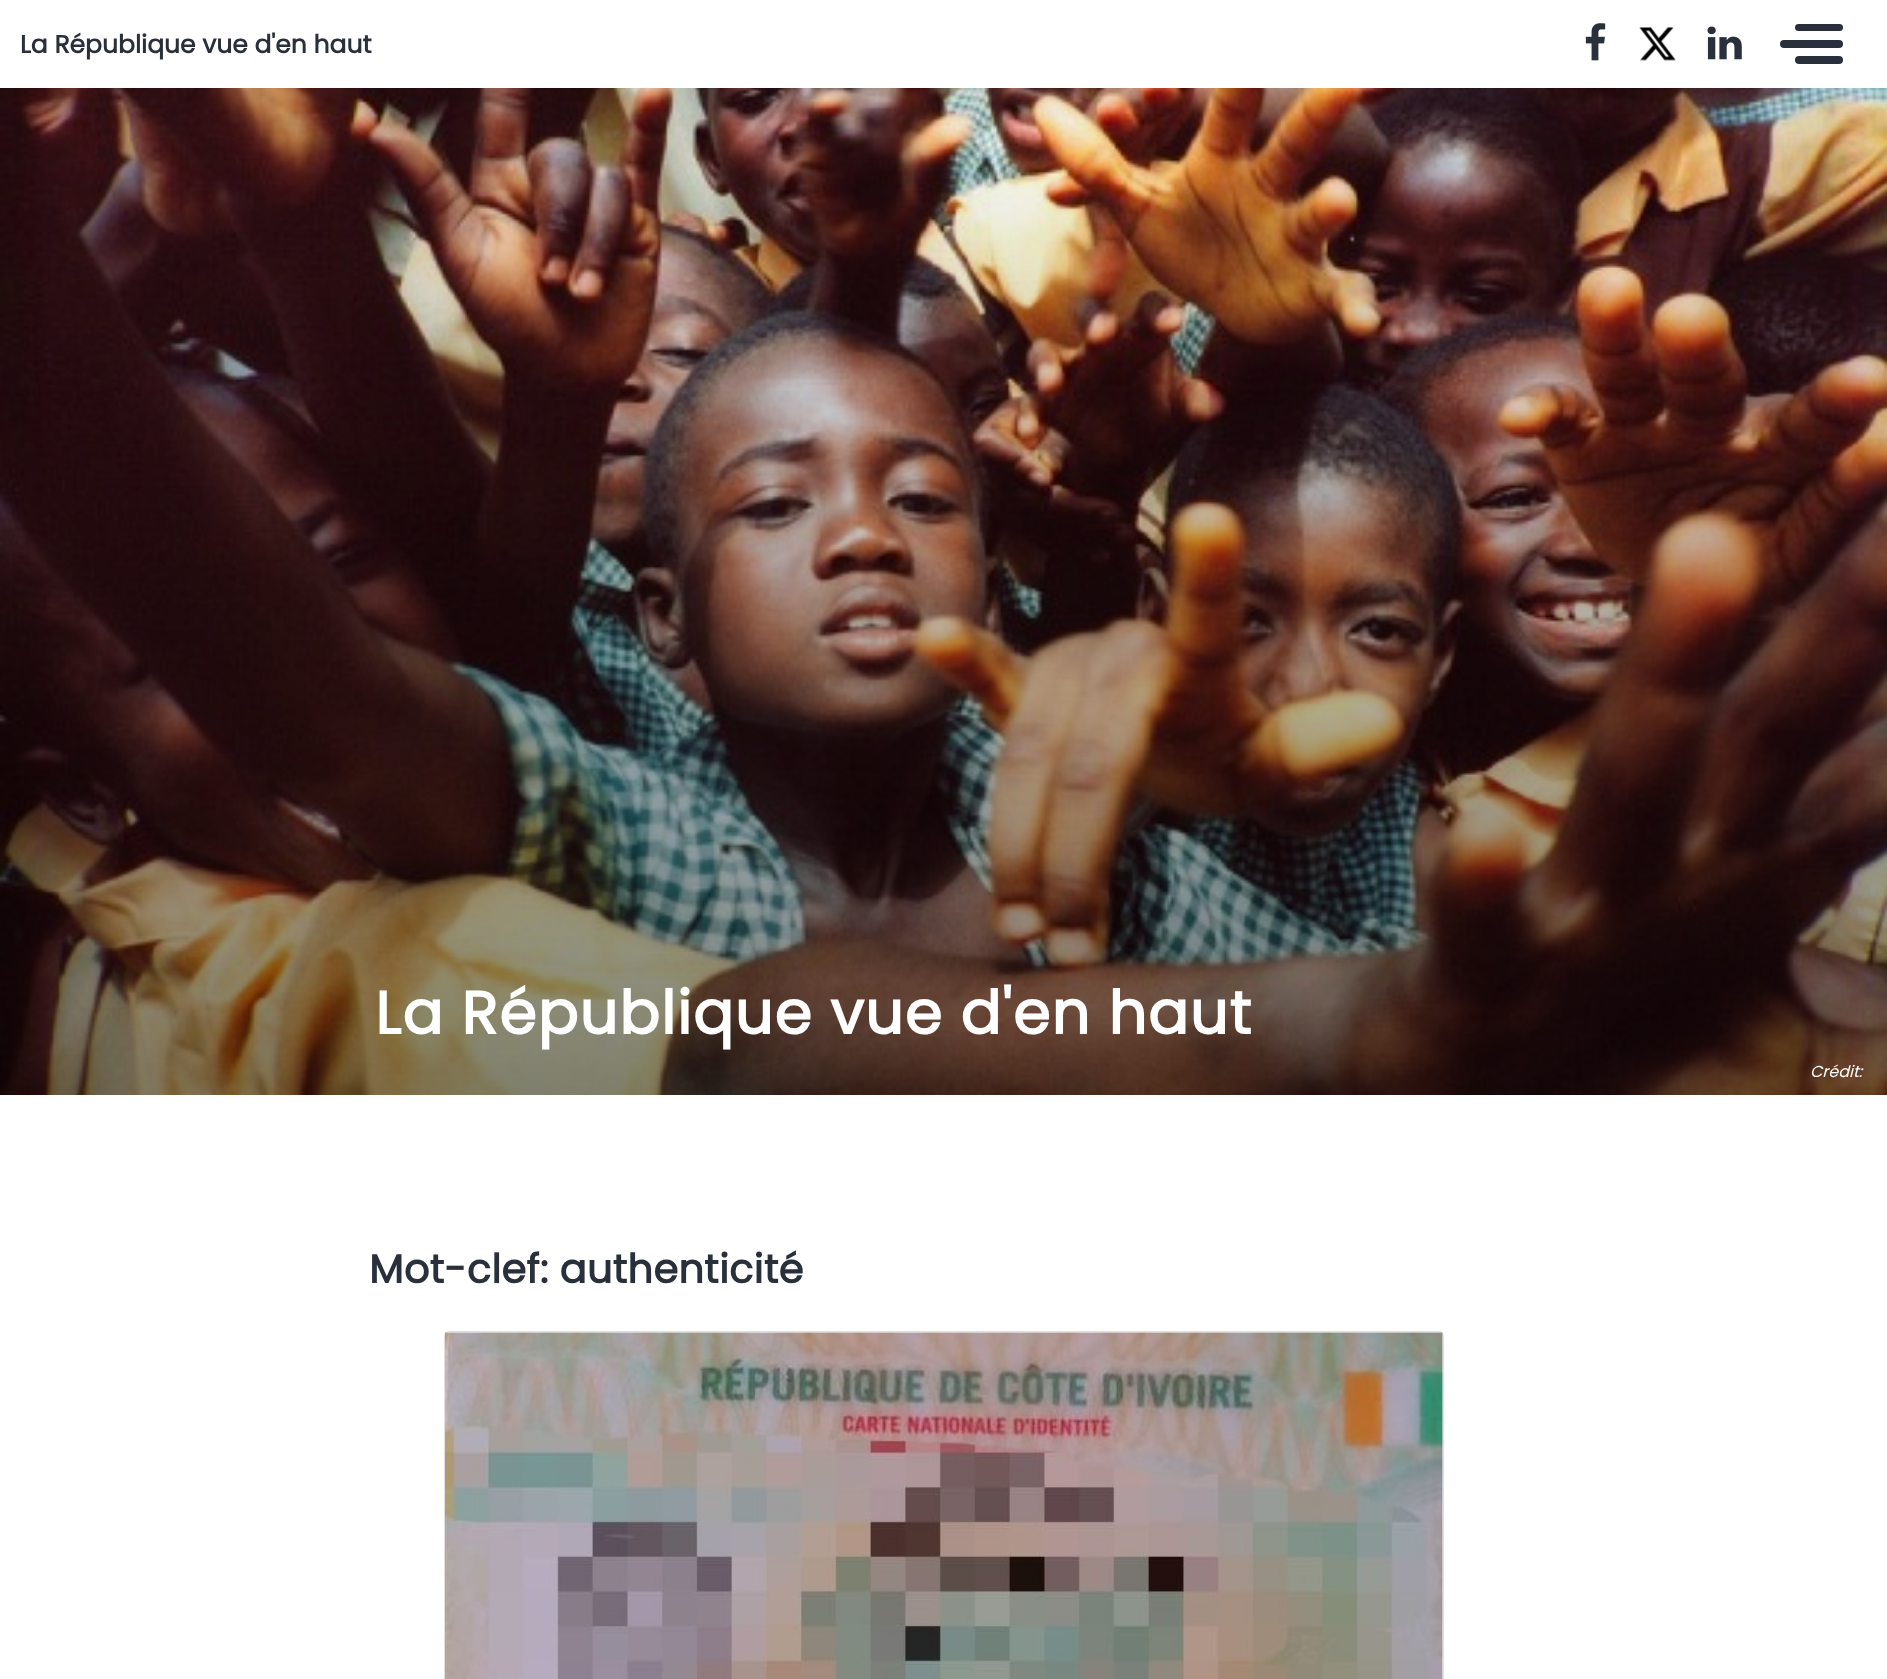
(async () => {
    const canvas = document.querySelector("canvas");
    canvas.width = 1887;
    canvas.height = 1679;
    const context = canvas.getContext("2d");
    context.miterLimit = 4;
    context.fontKerning = "normal";
    function write(s, x, y, font, color) {
        context.font = font;
        context.fillStyle = color;
        context.fillText(s, x, y);
    }
    function block(x, y, w, h, color) {
        context.fillStyle = color;
        context.fillRect(x, y, w, h);
    }
    function card(x, y, w, h, r, color) {
        context.fillStyle = color;
        context.beginPath();
        context.roundRect(x, y, w, h, r);
        context.fill();
    }
    async function photo(src, x, y, w, h) {
        const img = new Image();
        img.src = src;
        await img.decode();
        context.drawImage(img, x, y, w, h);
    }

    block(0, 0, 1887, 1679, "rgb(255, 255, 255)");
    await photo("media/4.png", 0, 88, 1887, 1007);
    context.fillStyle = "rgba(0, 0, 0, 0.11)";
    context.filter = "blur(31px)";
    context.beginPath();
    context.rect(0, 13, 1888, 87);
    context.fill();
    context.filter = "none";
    block(0, 0, 1887, 88, "rgb(255, 255, 255)");
    write("La République vue d'en haut", 20, 53, "bold 25px Poppins", "rgb(42, 48, 59)");
    await photo("media/1.png", 1585, 23, 21, 38);
    await photo("media/2.png", 1639, 27, 37, 34);
    await photo("media/3.png", 1707, 26, 35, 34);
    card(1780, 40, 63, 8, 4, "rgb(42, 48, 59)");
    card(1795, 24, 48, 7, 3.5, "rgb(42, 48, 59)");
    card(1795, 56, 48, 8, 4, "rgb(42, 48, 59)");
    context.letterSpacing = "1.25px";
    write("La République vue d'en haut", 375, 1034, "bold 60px Poppins", "rgb(255, 255, 255)");
    context.letterSpacing = "0px";
    write("Crédit:", 1810, 1077, "italic 16px Poppins", "rgb(255, 255, 255)");
    context.letterSpacing = "0.25px";
    write("Mot-clef: authenticité", 369, 1283, "bold 40px Poppins", "rgb(42, 48, 59)");
    context.beginPath();
    context.roundRect(444.5, 1331.5, 999, 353, 4.5);
    context.strokeStyle = "rgb(224, 224, 224)";
    context.stroke();
    await photo("media/5.png", 445, 1332, 998, 347);
})();
